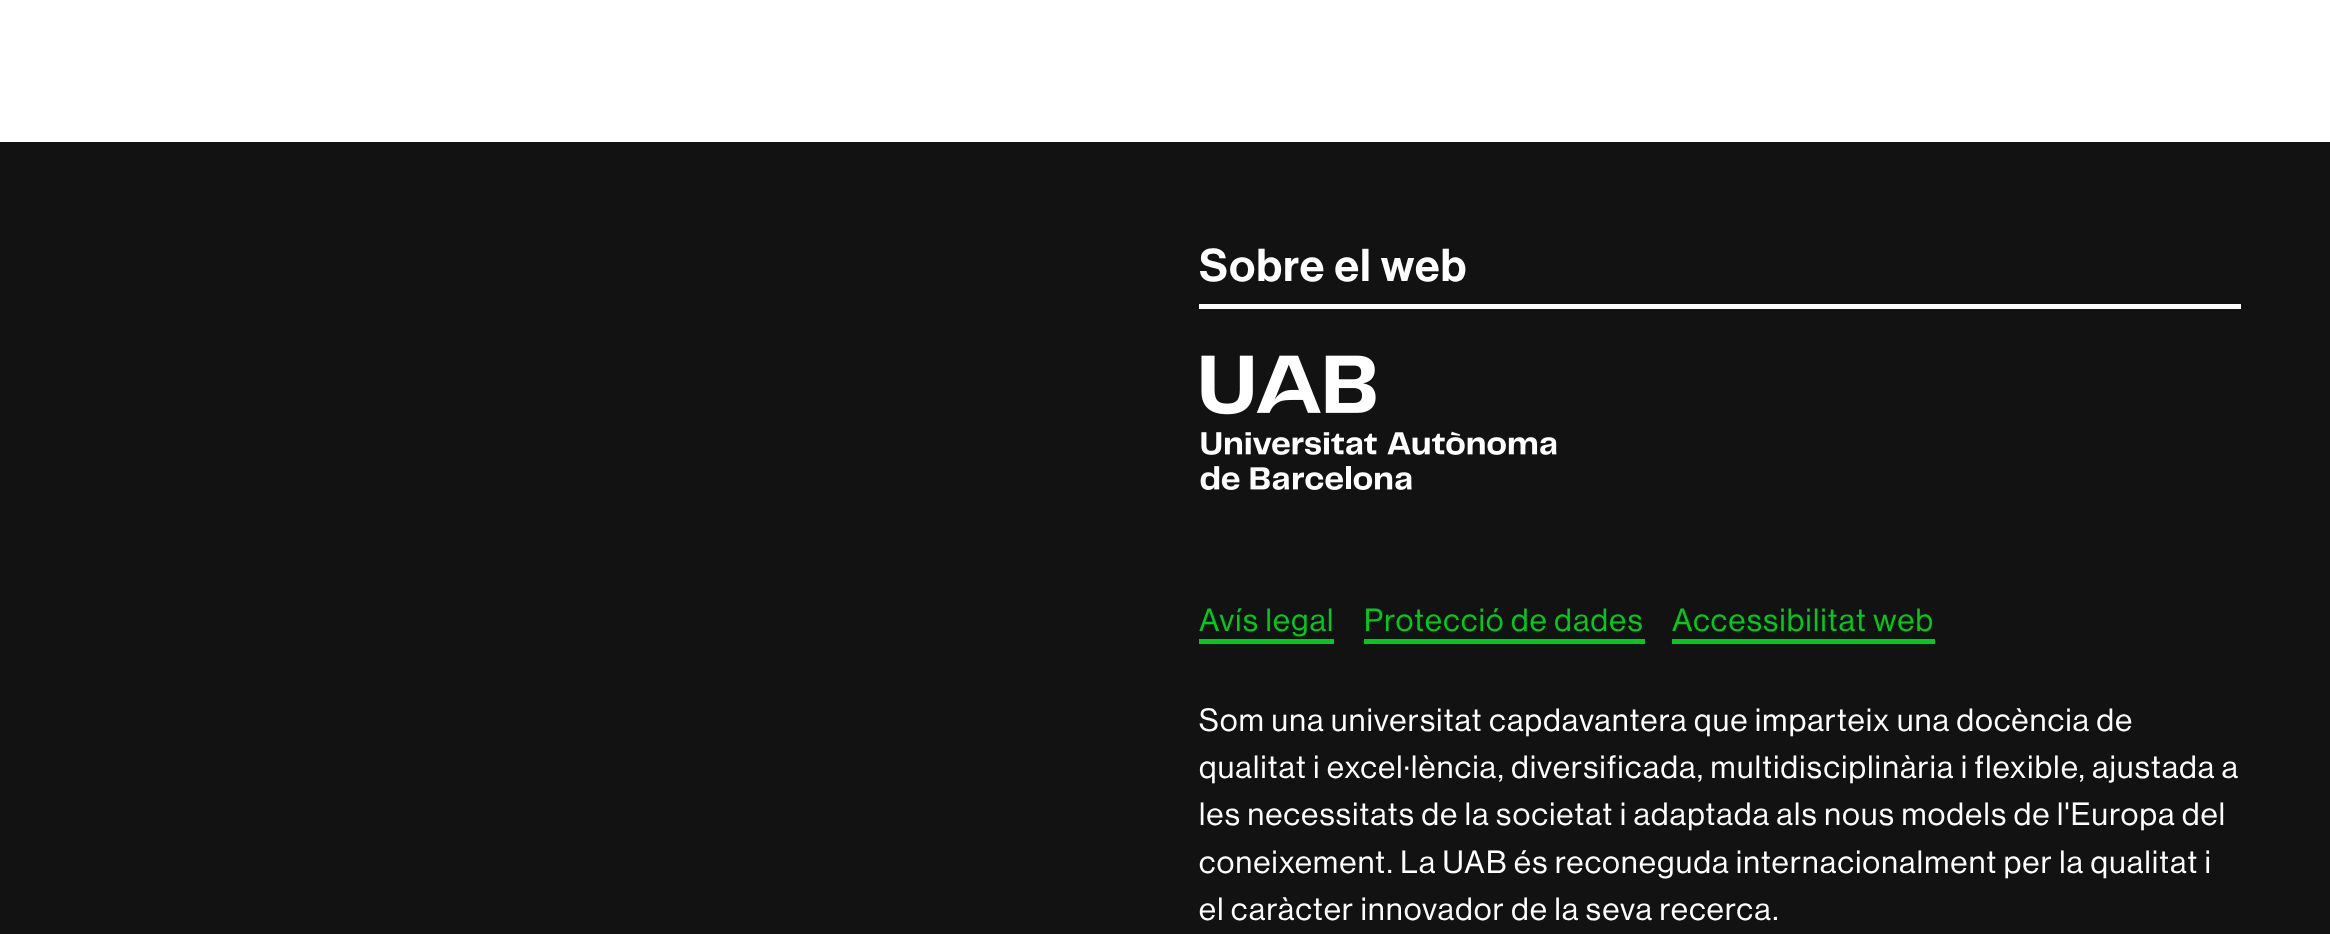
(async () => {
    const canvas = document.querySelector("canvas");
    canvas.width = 2330;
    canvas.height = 934;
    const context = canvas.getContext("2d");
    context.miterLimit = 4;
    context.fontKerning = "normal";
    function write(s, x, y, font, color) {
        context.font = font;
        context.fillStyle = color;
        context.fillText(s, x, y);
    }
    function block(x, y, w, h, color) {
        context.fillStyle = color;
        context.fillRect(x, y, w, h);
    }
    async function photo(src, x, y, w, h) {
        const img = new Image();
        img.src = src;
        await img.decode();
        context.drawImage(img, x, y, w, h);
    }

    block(0, 0, 2330, 934, "rgb(255, 255, 255)");
    block(0, 142, 2330, 792, "rgb(18, 18, 18)");
    block(1199, 304, 1042, 5, "rgb(255, 255, 255)");
    context.letterSpacing = "1.35px";
    write("Sobre el web", 1199, 281, "500 45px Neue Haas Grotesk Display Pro", "rgb(255, 255, 255)");
    await photo("media/1.png", 1200, 355, 357, 135);
    write("Avís legal", 1199, 631, "500 31.5px 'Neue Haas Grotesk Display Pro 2'", "rgb(0, 203, 27)");
    block(1199, 639, 135, 5, "rgb(0, 203, 27)");
    write("Protecció de dades", 1364, 631, "500 31.5px 'Neue Haas Grotesk Display Pro 2'", "rgb(0, 203, 27)");
    block(1364, 639, 281, 5, "rgb(0, 203, 27)");
    write("Accessibilitat web", 1672, 631, "500 31.5px 'Neue Haas Grotesk Display Pro 2'", "rgb(0, 203, 27)");
    block(1672, 639, 263, 5, "rgb(0, 203, 27)");
    write("Som una universitat capdavantera que imparteix una docència de", 1199, 731, "500 31.5px 'Neue Haas Grotesk Display Pro 2'", "rgb(255, 255, 255)");
    write("qualitat i excel·lència, diversificada, multidisciplinària i flexible, ajustada a", 1199, 778, "500 31.5px 'Neue Haas Grotesk Display Pro 2'", "rgb(255, 255, 255)");
    write("les necessitats de la societat i adaptada als nous models de l'Europa del", 1199, 825, "500 31.5px 'Neue Haas Grotesk Display Pro 2'", "rgb(255, 255, 255)");
    write("coneixement. La UAB és reconeguda internacionalment per la qualitat i", 1199, 873, "500 31.5px 'Neue Haas Grotesk Display Pro 2'", "rgb(255, 255, 255)");
    write("el caràcter innovador de la seva recerca.", 1199, 920, "500 31.5px 'Neue Haas Grotesk Display Pro 2'", "rgb(255, 255, 255)");
})();
